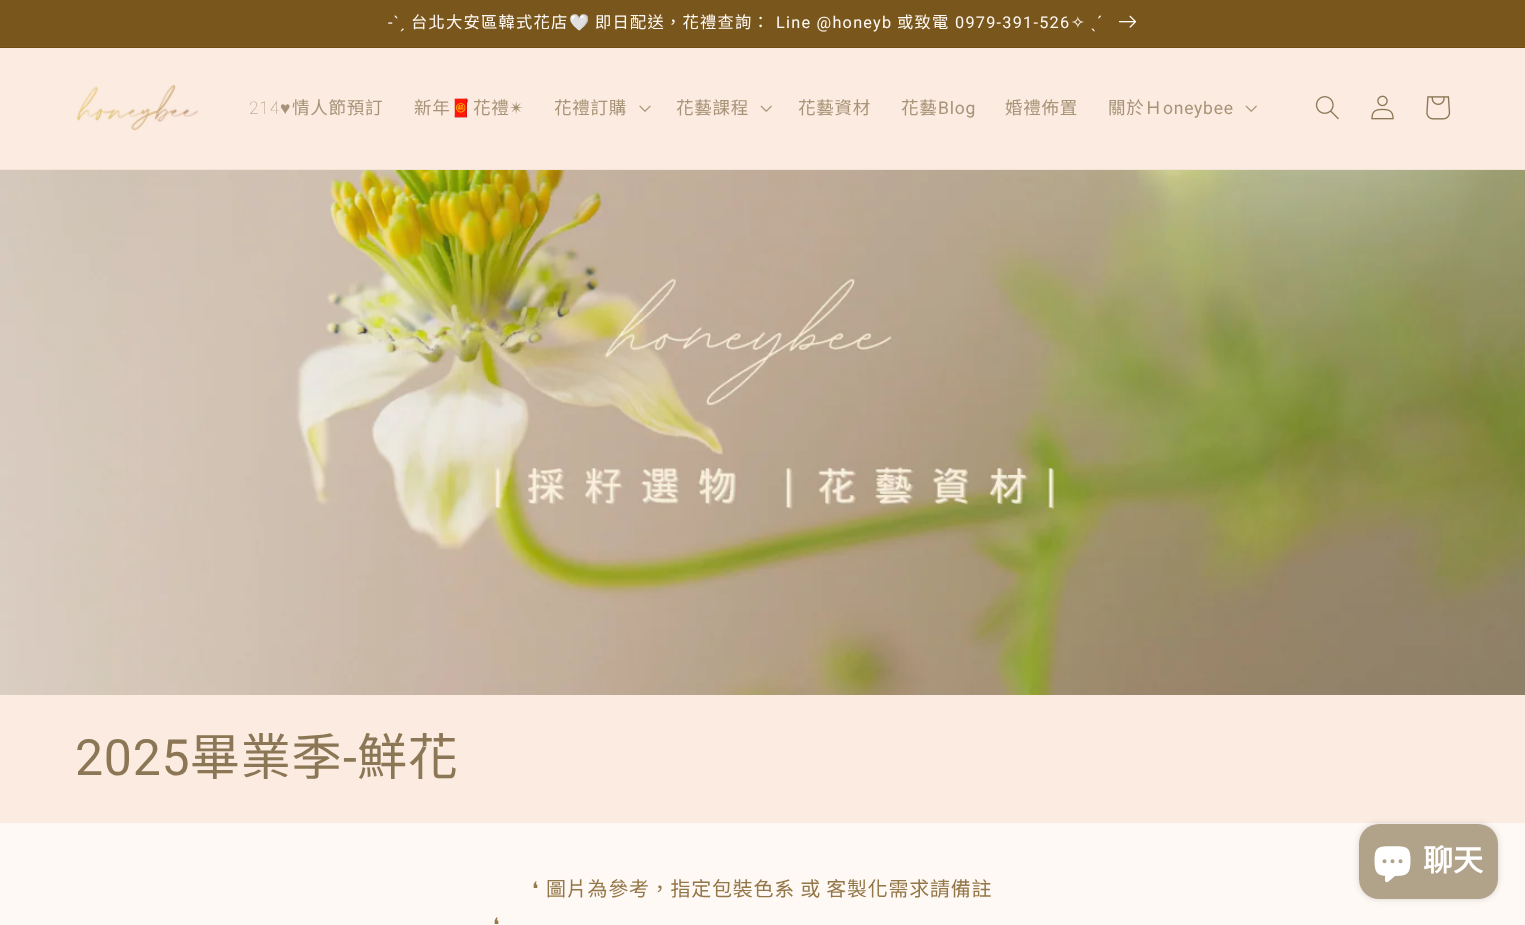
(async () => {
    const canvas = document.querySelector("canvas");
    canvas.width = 1525;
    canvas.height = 925;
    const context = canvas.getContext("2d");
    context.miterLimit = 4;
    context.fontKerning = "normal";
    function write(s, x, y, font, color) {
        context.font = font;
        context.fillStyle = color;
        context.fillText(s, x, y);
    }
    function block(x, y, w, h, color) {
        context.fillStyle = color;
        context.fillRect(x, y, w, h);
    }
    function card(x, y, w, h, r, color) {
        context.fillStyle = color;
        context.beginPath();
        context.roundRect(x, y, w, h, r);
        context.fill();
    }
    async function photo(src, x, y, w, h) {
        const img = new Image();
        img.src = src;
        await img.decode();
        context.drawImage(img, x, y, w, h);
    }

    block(0, 0, 1525, 925, "rgb(255, 249, 245)");
    block(0, 47, 1525, 1, "rgb(112, 76, 14)");
    block(0, 46, 1525, 1, "rgb(123, 90, 32)");
    block(0, 0, 1525, 46, "rgb(121, 86, 28)");
    context.letterSpacing = "1.25px";
    write("-`", 388, 28, "16.25px Roboto", "rgb(255, 249, 245)");
    write("台北大安區韓式花店", 411, 28, "16.25px Noto Sans CJK TC", "rgb(255, 249, 245)");
    write("🤍", 569, 28, "16.25px Noto Color Emoji", "rgb(255, 249, 245)");
    write("即日配送，花禮查詢：", 595, 28, "16.25px Noto Sans CJK TC", "rgb(255, 249, 245)");
    write("Line @honeyb", 776, 28, "16.25px Roboto", "rgb(255, 249, 245)");
    write("或致電", 897, 28, "16.25px Noto Sans CJK TC", "rgb(255, 249, 245)");
    write("0979-391-526", 955, 28, "16.25px Roboto", "rgb(255, 249, 245)");
    write("✧", 1071, 28, "16.25px DejaVu Sans", "rgb(255, 249, 245)");
    write("´", 1097, 28, "16.25px Roboto", "rgb(255, 249, 245)");
    await photo("media/1.png", 1119, 15, 18, 13);
    write("ˏ", 400, 28, "16.25px Noto Sans", "rgb(255, 249, 245)");
    write("ˎ", 1091, 28, "16.25px Noto Sans", "rgb(255, 249, 245)");
    block(0, 48, 1525, 121, "rgb(252, 235, 225)");
    block(0, 169, 1525, 1, "rgb(243, 226, 214)");
    await photo("media/2.png", 76, 84, 123, 47);
    context.letterSpacing = "0.75px";
    write("214", 249, 114, "100 17.5px Roboto", "rgb(167, 148, 120)");
    write("♥︎", 280, 114, "17.5px Liberation Sans", "rgb(167, 148, 120)");
    write("情人節預訂", 292, 114, "17.5px Noto Sans CJK TC", "rgb(167, 148, 120)");
    write("新年", 414, 114, "17.5px Noto Sans CJK TC", "rgb(167, 148, 120)");
    write("🧧", 450, 114, "17.5px Noto Color Emoji", "rgb(167, 148, 120)");
    write("花禮", 473, 114, "17.5px Noto Sans CJK TC", "rgb(167, 148, 120)");
    write("✴︎", 509, 114, "17.5px DejaVu Sans", "rgb(167, 148, 120)");
    write("花禮訂購", 554, 114, "17.5px Noto Sans CJK TC", "rgb(167, 148, 120)");
    await photo("media/3.png", 639, 105, 12, 7);
    write("花藝課程", 676, 114, "17.5px Noto Sans CJK TC", "rgb(167, 148, 120)");
    await photo("media/4.png", 760, 105, 12, 7);
    write("花藝資材", 798, 114, "17.5px Noto Sans CJK TC", "rgb(167, 148, 120)");
    write("花藝", 901, 114, "17.5px Noto Sans CJK TC", "rgb(167, 148, 120)");
    write("Blog", 938, 114, "17.5px Roboto", "rgb(167, 148, 120)");
    write("婚禮佈置", 1005, 114, "17.5px Noto Sans CJK TC", "rgb(167, 148, 120)");
    write("關於Ｈ", 1108, 114, "17.5px Noto Sans CJK TC", "rgb(167, 148, 120)");
    write("oneybee", 1163, 114, "17.5px Roboto", "rgb(167, 148, 120)");
    await photo("media/4.png", 1245, 105, 12, 7);
    await photo("media/5.png", 1315, 96, 24, 24);
    await photo("media/6.png", 1371, 95, 23, 25);
    await photo("media/7.png", 1426, 96, 25, 24);
    await photo("media/8.png", 0, 170, 1525, 525);
    block(0, 695, 1525, 128, "rgb(252, 235, 225)");
    write("2025", 75, 775, "50px Roboto", "rgb(139, 119, 85)");
    write("畢業季", 190, 775, "50px Noto Sans CJK TC", "rgb(139, 119, 85)");
    write("-", 343, 775, "50px Roboto", "rgb(139, 119, 85)");
    write("鮮花", 357, 775, "50px Noto Sans CJK TC", "rgb(139, 119, 85)");
    write("❛", 532, 896, "20px DejaVu Sans", "rgb(148, 119, 72)");
    write("圖片為參考，指定包裝色系 或 客製化需求請備註", 546, 896, "20px Noto Sans CJK TC", "rgb(148, 119, 72)");
    write("❛", 493, 932, "20px DejaVu Sans", "rgb(148, 119, 72)");
    context.fillStyle = "rgba(0, 0, 0, 0.15)";
    context.filter = "blur(3px)";
    context.beginPath();
    context.roundRect(1359, 824, 139, 75, 20);
    context.fill();
    context.filter = "none";
    card(1359, 824, 139, 75, 20, "rgb(177, 162, 138)");
    await photo("media/9.png", 1374, 846, 37, 37);
    context.letterSpacing = "0px";
    write("聊天", 1423, 871, "bold 30px Noto Sans CJK TC", "rgb(255, 255, 255)");
})();
